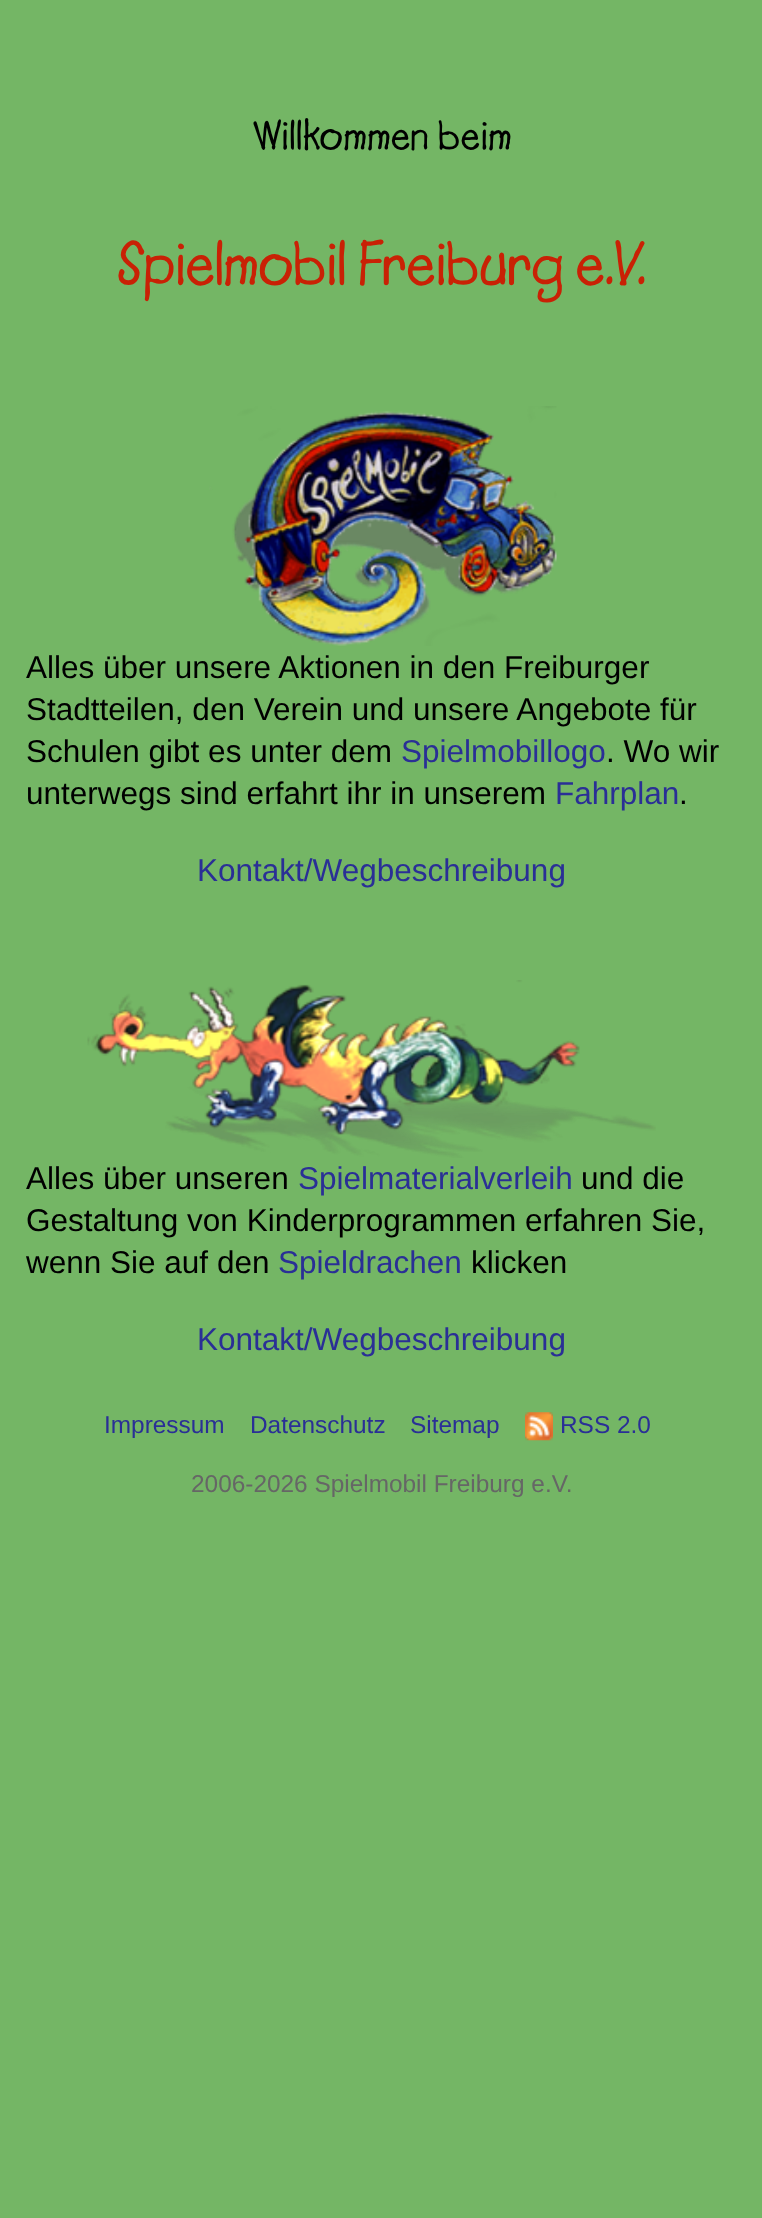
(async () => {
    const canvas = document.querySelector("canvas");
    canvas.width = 762;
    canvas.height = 2218;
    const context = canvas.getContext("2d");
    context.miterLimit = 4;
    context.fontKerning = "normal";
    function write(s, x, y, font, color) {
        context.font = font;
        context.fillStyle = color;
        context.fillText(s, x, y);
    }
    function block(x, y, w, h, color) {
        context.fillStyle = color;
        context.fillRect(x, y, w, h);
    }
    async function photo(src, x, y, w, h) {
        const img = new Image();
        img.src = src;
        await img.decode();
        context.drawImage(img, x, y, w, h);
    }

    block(0, 0, 762, 2218, "rgb(116, 182, 101)");
    write("Willkommen beim", 252, 149, "bold 42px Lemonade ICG", "rgb(0, 0, 0)");
    context.letterSpacing = "-0.95px";
    write("Spielmobil Freiburg e.V.", 117, 284, "bold 63px Lemonade ICG", "rgb(201, 33, 5)");
    await photo("media/1.png", 209, 406, 348, 240);
    context.letterSpacing = "0px";
    write("Alles über unsere Aktionen in den Freiburger", 26, 678, "31.5px Liberation Sans", "rgb(0, 0, 0)");
    write("Stadtteilen, den Verein und unsere Angebote für", 26, 720, "31.5px Liberation Sans", "rgb(0, 0, 0)");
    write("Schulen gibt es unter dem", 26, 762, "31.5px Liberation Sans", "rgb(0, 0, 0)");
    write("Spielmobillogo", 401, 762, "31.5px Liberation Sans", "rgb(42, 47, 150)");
    write(". Wo wir", 606, 762, "31.5px Liberation Sans", "rgb(0, 0, 0)");
    write("unterwegs sind erfahrt ihr in unserem", 26, 804, "31.5px Liberation Sans", "rgb(0, 0, 0)");
    write("Fahrplan", 555, 804, "31.5px Liberation Sans", "rgb(42, 47, 150)");
    write(".", 679, 804, "31.5px Liberation Sans", "rgb(0, 0, 0)");
    write("Kontakt/Wegbeschreibung", 197, 881, "31.5px Liberation Sans", "rgb(42, 47, 150)");
    await photo("media/2.png", 87, 980, 569, 178);
    write("Alles über unseren", 26, 1189, "31.5px Liberation Sans", "rgb(0, 0, 0)");
    write("Spielmaterialverleih", 298, 1189, "31.5px Liberation Sans", "rgb(42, 47, 150)");
    write("und die", 581, 1189, "31.5px Liberation Sans", "rgb(0, 0, 0)");
    write("Gestaltung von Kinderprogrammen erfahren Sie,", 26, 1231, "31.5px Liberation Sans", "rgb(0, 0, 0)");
    write("wenn Sie auf den", 26, 1273, "31.5px Liberation Sans", "rgb(0, 0, 0)");
    write("Spieldrachen", 278, 1273, "31.5px Liberation Sans", "rgb(42, 47, 150)");
    write("klicken", 471, 1273, "31.5px Liberation Sans", "rgb(0, 0, 0)");
    write("Kontakt/Wegbeschreibung", 197, 1350, "31.5px Liberation Sans", "rgb(42, 47, 150)");
    write("Impressum", 104, 1433, "24.4px Liberation Sans", "rgb(42, 47, 150)");
    write("Datenschutz", 250, 1433, "24.4px Liberation Sans", "rgb(42, 47, 150)");
    write("Sitemap", 410, 1433, "24.4px Liberation Sans", "rgb(42, 47, 150)");
    await photo("media/3.png", 525, 1412, 28, 29);
    write("RSS 2.0", 560, 1433, "24.4px Liberation Sans", "rgb(42, 47, 150)");
    write("2006-2026 Spielmobil Freiburg e.V.", 191, 1492, "24.4px Liberation Sans", "rgb(102, 102, 102)");
})();
